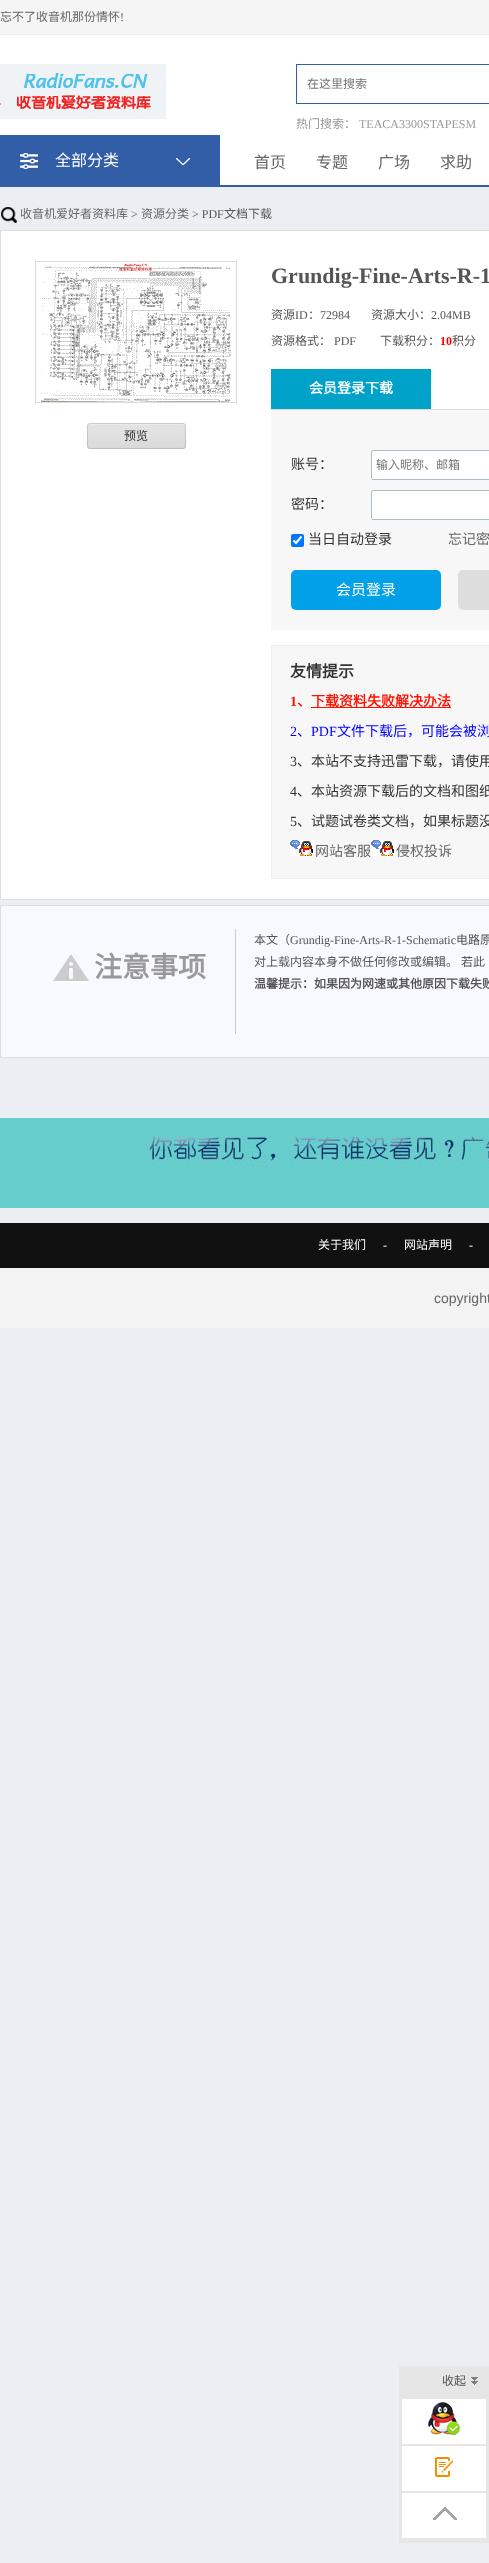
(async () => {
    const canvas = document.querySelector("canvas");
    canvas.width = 489;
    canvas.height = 2563;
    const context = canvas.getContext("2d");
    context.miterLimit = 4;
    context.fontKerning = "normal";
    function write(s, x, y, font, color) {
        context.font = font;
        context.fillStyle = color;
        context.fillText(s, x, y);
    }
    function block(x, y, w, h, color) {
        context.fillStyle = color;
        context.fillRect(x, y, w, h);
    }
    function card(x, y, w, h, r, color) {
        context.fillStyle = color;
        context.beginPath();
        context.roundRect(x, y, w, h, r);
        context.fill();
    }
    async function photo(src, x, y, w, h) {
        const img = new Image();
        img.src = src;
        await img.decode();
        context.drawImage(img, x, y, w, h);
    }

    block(0, 0, 489, 2563, "rgb(235, 238, 242)");
    block(0, 35, 489, 150, "rgb(255, 255, 255)");
    block(0, 0, 489, 34, "rgb(245, 245, 245)");
    block(0, 34, 489, 1, "rgb(238, 238, 238)");
    write("忘不了收音机那份情怀", 0, 21, "12px Noto Sans CJK SC", "rgb(102, 102, 102)");
    write("!", 120, 21, "12px Liberation Serif", "rgb(102, 102, 102)");
    await photo("media/1.png", 0, 64, 166, 55);
    context.strokeStyle = "rgb(50, 93, 167)";
    context.strokeRect(296.5, 64.5, 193, 39);
    write("在这里搜索", 307, 88, "12px Noto Sans CJK SC", "rgb(117, 117, 117)");
    write("热门搜索：", 296, 128, "12px Noto Sans CJK SC", "rgb(153, 153, 153)");
    write("TEACA3300STAPESM", 359, 128, "12px Liberation Serif", "rgb(153, 153, 153)");
    block(0, 185, 489, 2, "rgb(50, 93, 167)");
    block(0, 135, 220, 50, "rgb(50, 93, 167)");
    await photo("media/2.png", 20, 153, 18, 16);
    write("全部分类", 55, 166, "16px Noto Sans CJK SC", "rgb(255, 255, 255)");
    await photo("media/3.png", 176, 158, 14, 7);
    write("首页", 254, 168, "16px Noto Sans CJK SC", "rgb(102, 102, 102)");
    write("专题", 316, 168, "16px Noto Sans CJK SC", "rgb(102, 102, 102)");
    write("广场", 378, 168, "16px Noto Sans CJK SC", "rgb(102, 102, 102)");
    write("求助", 440, 168, "16px Noto Sans CJK SC", "rgb(102, 102, 102)");
    await photo("media/4.png", 1, 207, 16, 16);
    write("收音机爱好者资料库", 20, 218, "12px Noto Sans CJK SC", "rgb(102, 102, 102)");
    write(">", 131, 218, "12px Liberation Serif", "rgb(85, 85, 85)");
    write("资源分类", 141, 218, "12px Noto Sans CJK SC", "rgb(102, 102, 102)");
    write("> PDF", 192, 218, "12px Liberation Serif", "rgb(85, 85, 85)");
    write("文档下载", 224, 218, "12px Noto Sans CJK SC", "rgb(85, 85, 85)");
    context.fillStyle = "rgb(255, 255, 255)";
    context.beginPath();
    context.rect(0.5, 230.5, 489, 669);
    context.fill();
    context.strokeStyle = "rgb(221, 221, 221)";
    context.stroke();
    context.strokeRect(35.5, 261.5, 201, 141);
    await photo("media/5.png", 41, 263, 190, 139);
    await photo("media/6.png", 87, 423, 99, 26);
    write("预览", 124, 440, "12px Noto Sans CJK SC", "rgb(51, 51, 51)");
    write("Grundig-Fine-Arts-R-1", 271, 283, "bold 22px Liberation Serif", "rgb(85, 85, 85)");
    write("资源", 271, 319, "12px Noto Sans CJK SC", "rgb(85, 85, 85)");
    write("ID", 295, 319, "12px Liberation Serif", "rgb(85, 85, 85)");
    write("：", 308, 319, "12px Noto Sans CJK SC", "rgb(85, 85, 85)");
    write("72984", 320, 319, "12px Liberation Serif", "rgb(85, 85, 85)");
    write("资源大小：", 371, 319, "12px Noto Sans CJK SC", "rgb(85, 85, 85)");
    write("2.04MB", 431, 319, "12px Liberation Serif", "rgb(85, 85, 85)");
    write("资源格式：", 271, 345, "12px Noto Sans CJK SC", "rgb(85, 85, 85)");
    write("PDF", 334, 345, "12px Liberation Serif", "rgb(85, 85, 85)");
    write("下载积分：", 380, 345, "12px Noto Sans CJK SC", "rgb(85, 85, 85)");
    write("10", 440, 345, "bold 12px Liberation Serif", "rgb(255, 0, 0)");
    write("积分", 452, 345, "12px Noto Sans CJK SC", "rgb(85, 85, 85)");
    block(271, 410, 218, 220, "rgb(247, 247, 247)");
    block(271, 409, 218, 1, "rgb(221, 221, 221)");
    block(271, 369, 160, 40, "rgb(0, 162, 202)");
    write("会员登录下载", 309, 393, "bold 14px Noto Sans CJK SC", "rgb(255, 255, 255)");
    write("账号：", 291, 469, "14px Noto Sans CJK SC", "rgb(51, 51, 51)");
    context.fillStyle = "rgb(255, 255, 255)";
    context.beginPath();
    context.roundRect(371.5, 450.5, 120, 29, 1.5);
    context.fill();
    context.strokeStyle = "rgb(172, 188, 199)";
    context.stroke();
    write("输入昵称、邮箱", 376, 469, "12px Noto Sans CJK SC", "rgb(117, 117, 117)");
    write("密码：", 291, 509, "14px Noto Sans CJK SC", "rgb(51, 51, 51)");
    context.fillStyle = "rgb(255, 255, 255)";
    context.beginPath();
    context.roundRect(371.5, 490.5, 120, 29, 1.5);
    context.fill();
    context.stroke();
    card(291, 534, 13, 13, 2, "rgb(0, 117, 255)");
    context.beginPath();
    context.moveTo(293.5, 540.5);
    context.lineTo(296, 543);
    context.lineTo(301.5, 536.5);
    context.strokeStyle = "rgb(255, 255, 255)";
    context.lineWidth = 2.1;
    context.stroke();
    write("当日自动登录", 308, 544, "14px Noto Sans CJK SC", "rgb(51, 51, 51)");
    write("忘记密", 448, 544, "14px Noto Sans CJK SC", "rgb(102, 102, 102)");
    card(291, 570, 150, 40, 5, "rgb(0, 161, 233)");
    write("会员登录", 336, 595, "15px Noto Sans CJK SC", "rgb(255, 255, 255)");
    card(458, 570, 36, 40, 5, "rgb(221, 221, 221)");
    context.fillStyle = "rgb(247, 247, 247)";
    context.beginPath();
    context.rect(271.5, 645.5, 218, 233);
    context.fill();
    context.strokeStyle = "rgb(238, 238, 238)";
    context.lineWidth = 1;
    context.stroke();
    write("友情提示", 290, 677, "bold 16px Noto Sans CJK SC", "rgb(51, 51, 51)");
    write("1", 290, 706, "bold 14px Liberation Serif", "rgb(255, 17, 0)");
    write("、", 297, 706, "bold 14px Noto Sans CJK SC", "rgb(255, 17, 0)");
    block(311, 707, 140, 1, "rgb(255, 17, 0)");
    write("下载资料失败解决办法", 311, 706, "bold 14px Noto Sans CJK SC", "rgb(255, 17, 0)");
    write("2", 290, 736, "14px Liberation Serif", "rgb(0, 0, 255)");
    write("、", 297, 736, "14px Noto Sans CJK SC", "rgb(0, 0, 255)");
    write("PDF", 311, 736, "14px Liberation Serif", "rgb(0, 0, 255)");
    write("文件下载后，可能会被浏", 337, 736, "14px Noto Sans CJK SC", "rgb(0, 0, 255)");
    write("3", 290, 766, "14px Liberation Serif", "rgb(51, 51, 51)");
    write("、本站不支持迅雷下载，请使用", 297, 766, "14px Noto Sans CJK SC", "rgb(51, 51, 51)");
    write("4", 290, 796, "14px Liberation Serif", "rgb(51, 51, 51)");
    write("、本站资源下载后的文档和图纸", 297, 796, "14px Noto Sans CJK SC", "rgb(51, 51, 51)");
    write("5", 290, 826, "14px Liberation Serif", "rgb(51, 51, 51)");
    write("、试题试卷类文档，如果标题没", 297, 826, "14px Noto Sans CJK SC", "rgb(51, 51, 51)");
    await photo("media/7.png", 290, 840, 25, 16);
    write("网站客服", 315, 856, "14px Noto Sans CJK SC", "rgb(102, 102, 102)");
    await photo("media/7.png", 371, 840, 25, 16);
    write("侵权投诉", 396, 856, "14px Noto Sans CJK SC", "rgb(102, 102, 102)");
    context.fillStyle = "rgb(248, 248, 255)";
    context.beginPath();
    context.rect(0.5, 905.5, 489, 152);
    context.fill();
    context.strokeStyle = "rgb(221, 221, 221)";
    context.stroke();
    block(235, 929, 1, 105, "rgb(204, 204, 204)");
    await photo("media/8.png", 53, 954, 36, 29);
    write("注意事项", 94, 977, "bold 28px Noto Sans CJK SC", "rgb(153, 153, 153)");
    write("本文（", 254, 944, "12px Noto Sans CJK SC", "rgb(85, 85, 85)");
    write("Grundig-Fine-Arts-R-1-Schematic", 290, 944, "12px Liberation Serif", "rgb(85, 85, 85)");
    write("电路原", 456, 944, "12px Noto Sans CJK SC", "rgb(85, 85, 85)");
    write("对上载内容本身不做任何修改或编辑。", 254, 966, "12px Noto Sans CJK SC", "rgb(85, 85, 85)");
    write("若此", 461, 966, "12px Noto Sans CJK SC", "rgb(85, 85, 85)");
    write("温馨提示：如果因为网速或其他原因下载失败", 254, 988, "bold 12px Noto Sans CJK SC", "rgb(85, 85, 85)");
    await photo("media/9.png", 0, 1118, 489, 90);
    block(0, 1223, 489, 45, "rgb(17, 17, 17)");
    write("关于我们", 318, 1249, "12px Noto Sans CJK SC", "rgb(255, 255, 255)");
    write("-", 383, 1249, "12px Liberation Serif", "rgb(255, 255, 255)");
    write("网站声明", 404, 1249, "12px Noto Sans CJK SC", "rgb(255, 255, 255)");
    write("-", 469, 1249, "12px Liberation Serif", "rgb(255, 255, 255)");
    block(0, 1268, 489, 60, "rgb(243, 243, 243)");
    write("copyright", 434, 1303, "14px Liberation Sans", "rgb(102, 102, 102)");
    block(399, 2366, 90, 30, "rgb(230, 230, 230)");
    write("收起", 442, 2385, "12px Noto Sans CJK SC", "rgb(85, 85, 85)");
    await photo("media/10.png", 471, 2377, 7, 8);
    context.strokeStyle = "rgb(230, 230, 230)";
    context.lineWidth = 3;
    context.strokeRect(400.5, 2397.5, 87, 144);
    block(402, 2399, 84, 45, "rgb(255, 255, 255)");
    await photo("media/11.png", 428, 2402, 32, 33);
    block(402, 2444, 84, 2, "rgb(230, 230, 230)");
    block(402, 2446, 84, 45, "rgb(255, 255, 255)");
    await photo("media/12.png", 435, 2457, 18, 20);
    block(402, 2491, 84, 2, "rgb(230, 230, 230)");
    block(402, 2493, 84, 45, "rgb(255, 255, 255)");
    await photo("media/13.png", 433, 2507, 24, 13);
    block(402, 2538, 84, 2, "rgb(230, 230, 230)");
})();
